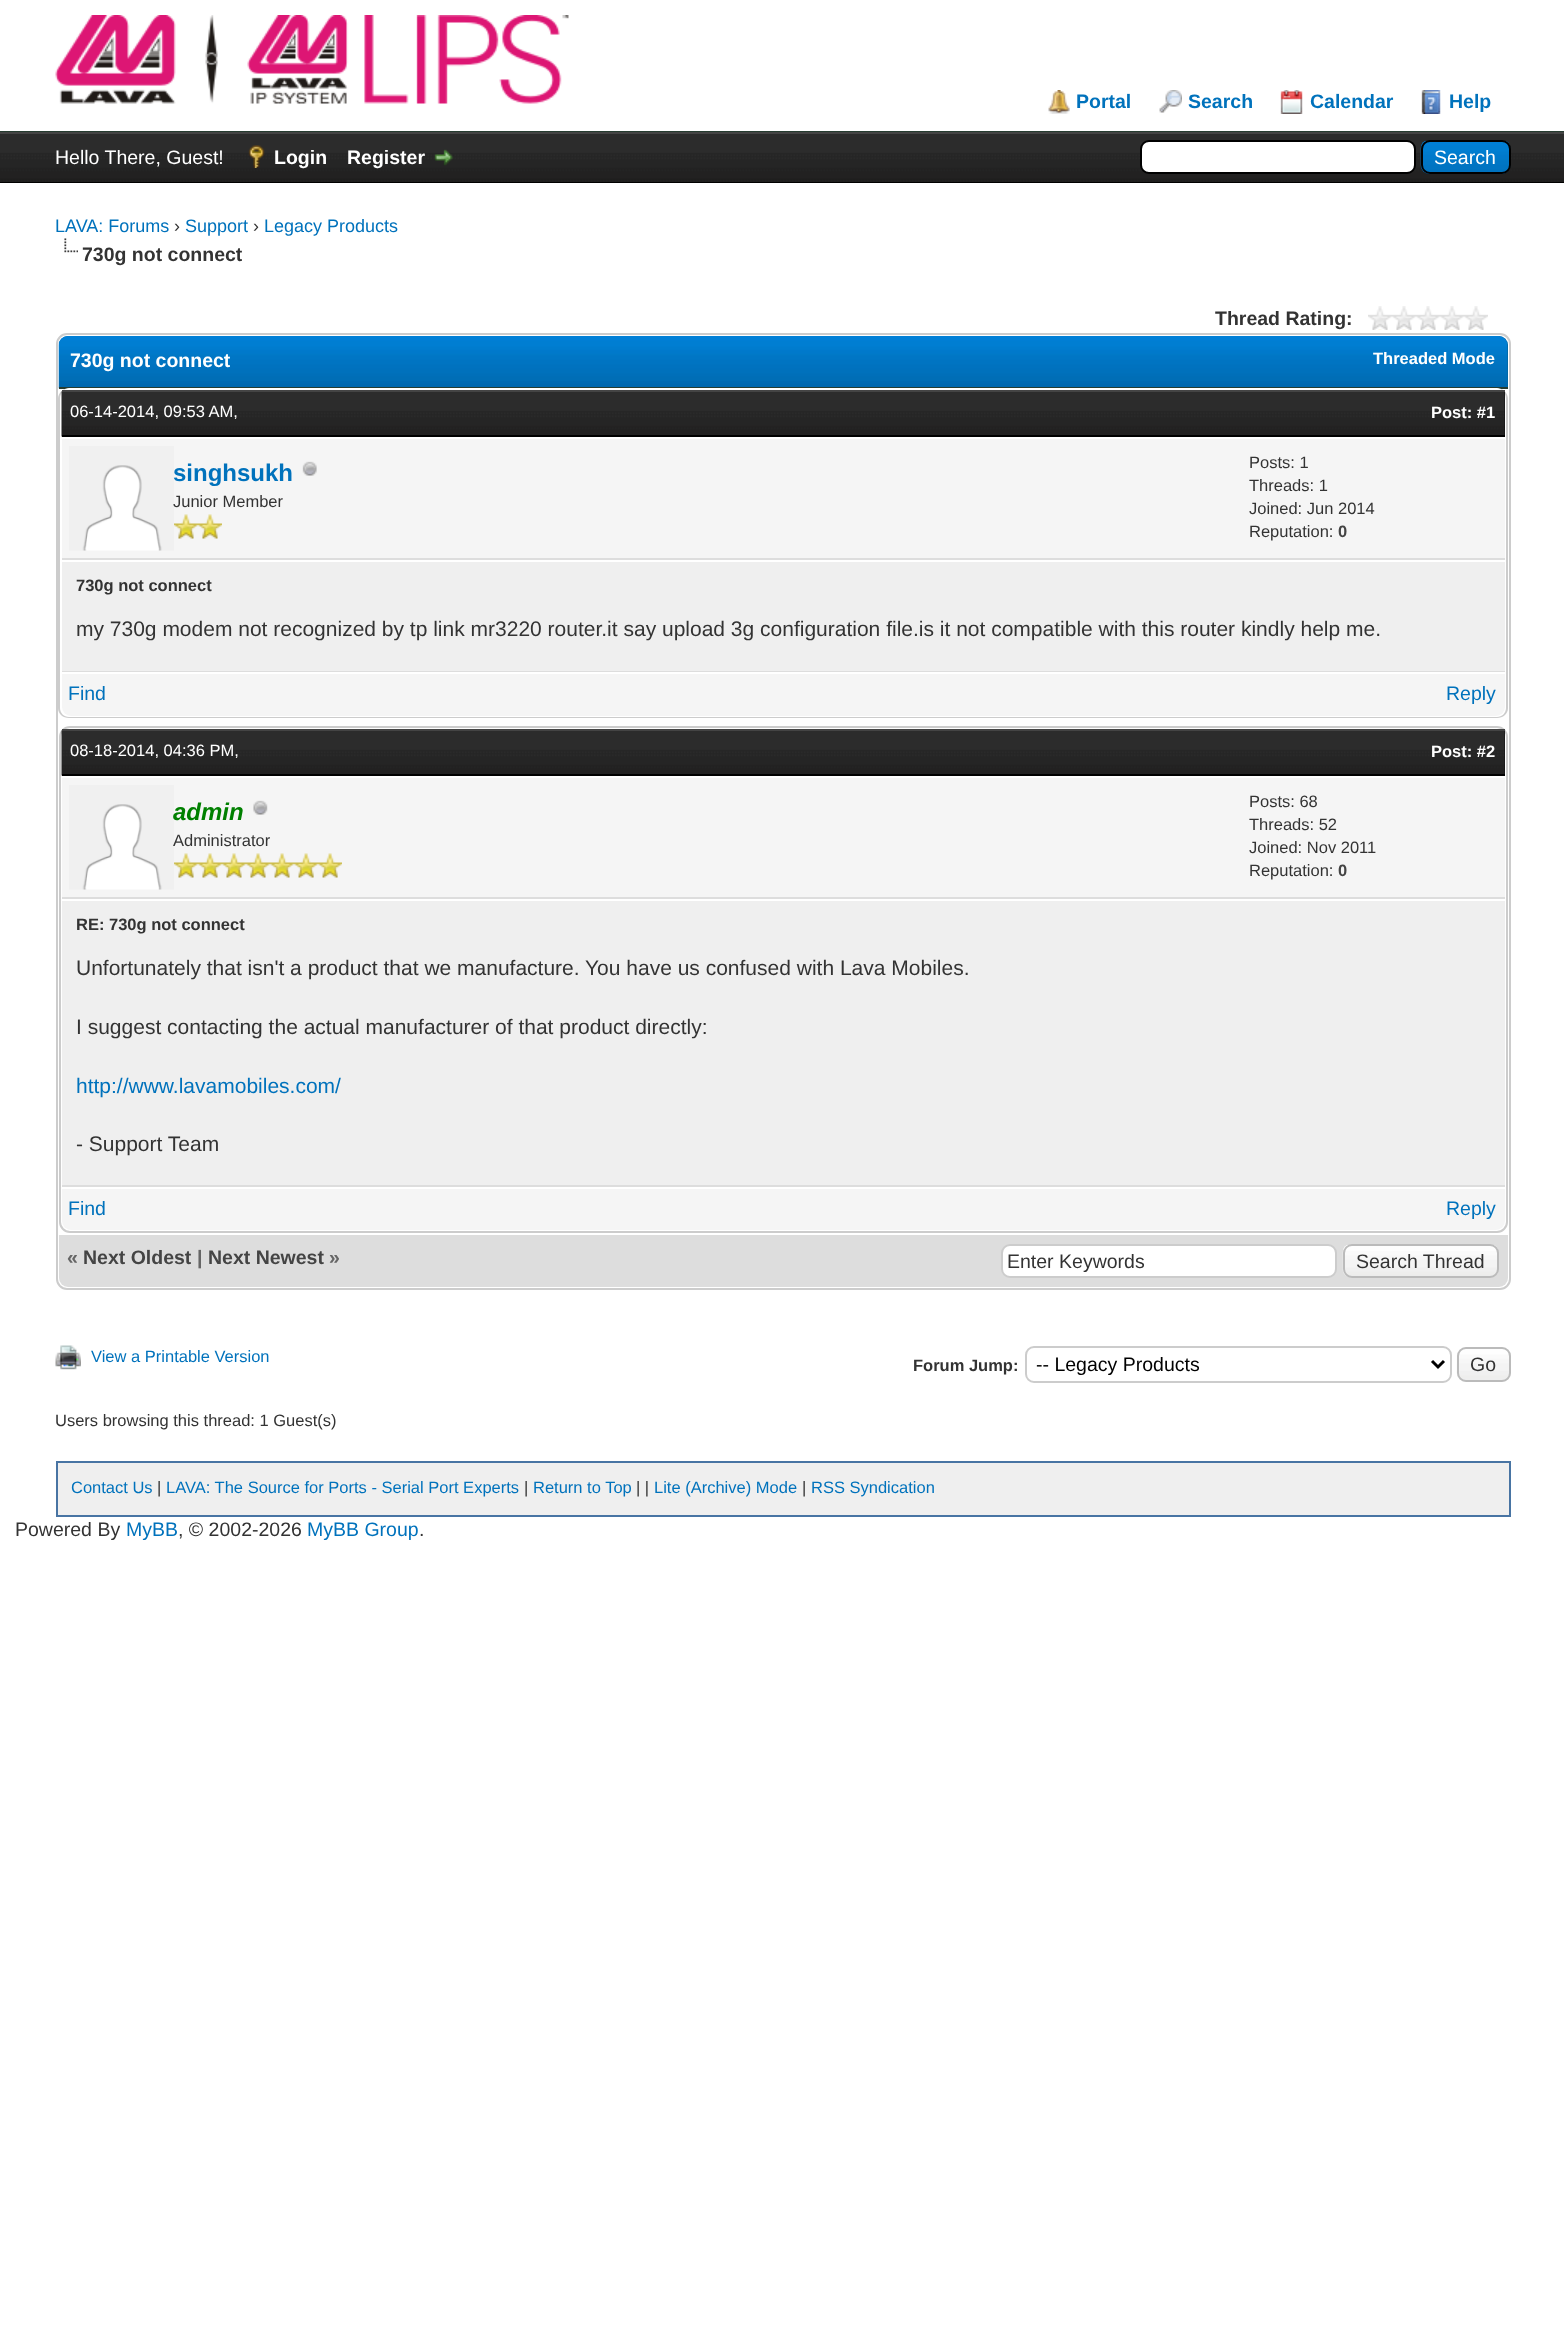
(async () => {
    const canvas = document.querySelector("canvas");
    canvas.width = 1564;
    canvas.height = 2352;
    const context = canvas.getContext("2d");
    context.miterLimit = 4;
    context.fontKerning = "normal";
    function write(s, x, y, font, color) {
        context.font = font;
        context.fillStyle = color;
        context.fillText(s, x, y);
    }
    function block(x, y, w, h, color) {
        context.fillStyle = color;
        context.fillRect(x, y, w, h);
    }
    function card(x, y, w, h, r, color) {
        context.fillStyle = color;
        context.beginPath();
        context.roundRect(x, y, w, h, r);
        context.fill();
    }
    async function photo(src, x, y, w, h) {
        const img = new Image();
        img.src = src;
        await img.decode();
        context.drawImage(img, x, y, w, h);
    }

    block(0, 0, 1564, 2352, "rgb(255, 255, 255)");
    block(0, 131, 1564, 1, "rgb(38, 60, 48)");
    await photo("media/1.png", 55, 15, 514, 89);
    await photo("media/2.png", 1048, 90, 22, 24);
    write("Portal", 1076, 108, "bold 19.5px Liberation Sans", "rgb(0, 114, 188)");
    await photo("media/3.png", 1159, 90, 23, 23);
    write("Search", 1188, 108, "bold 19.5px Liberation Sans", "rgb(0, 114, 188)");
    await photo("media/4.png", 1280, 90, 23, 24);
    write("Calendar", 1310, 108, "bold 19.5px Liberation Sans", "rgb(0, 114, 188)");
    await photo("media/5.png", 1421, 90, 20, 24);
    write("Help", 1449, 108, "bold 19.5px Liberation Sans", "rgb(0, 114, 188)");
    await photo("media/6.png", 0, 134, 1564, 48);
    block(0, 132, 1564, 2, "rgb(68, 68, 68)");
    block(0, 182, 1564, 1, "rgb(0, 0, 0)");
    write("Hello There, Guest!", 55, 164, "19.5px Liberation Sans", "rgb(255, 255, 255)");
    await photo("media/7.png", 248, 145, 17, 23);
    write("Login", 274, 164, "bold 19.5px Liberation Sans", "rgb(255, 255, 255)");
    write("Register", 347, 164, "bold 19.5px Liberation Sans", "rgb(255, 255, 255)");
    await photo("media/8.png", 434, 149, 20, 17);
    context.beginPath();
    context.roundRect(1141, 141, 274, 32, 8);
    context.fill();
    context.strokeStyle = "rgb(0, 0, 0)";
    context.lineWidth = 2;
    context.stroke();
    await photo("media/9.png", 1420, 141, 91, 33);
    context.beginPath();
    context.roundRect(1422, 141, 88, 32, 8);
    context.stroke();
    write("Search", 1434, 164, "19.5px Liberation Sans", "rgb(255, 255, 255)");
    write("LAVA: Forums", 55, 232, "18px Liberation Sans", "rgb(0, 114, 188)");
    write("›", 174, 232, "18px Liberation Sans", "rgb(51, 51, 51)");
    write("Support", 185, 232, "18px Liberation Sans", "rgb(0, 114, 188)");
    write("›", 253, 232, "18px Liberation Sans", "rgb(51, 51, 51)");
    write("Legacy Products", 264, 232, "18px Liberation Sans", "rgb(0, 114, 188)");
    await photo("media/10.png", 64, 238, 14, 15);
    write("730g not connect", 82, 261, "bold 19.5px Liberation Sans", "rgb(51, 51, 51)");
    write("Thread Rating:", 1215, 325, "bold 19.5px Liberation Sans", "rgb(51, 51, 51)");
    await photo("media/11.png", 1368, 306, 120, 24);
    context.beginPath();
    context.roundRect(57, 334, 1453, 955, 10);
    context.strokeStyle = "rgb(204, 204, 204)";
    context.stroke();
    context.fillStyle = "rgb(0, 102, 162)";
    context.beginPath();
    context.roundRect(59, 336, 1449, 53, [9, 9, 0, 0]);
    context.fill();
    await photo("media/12.png", 58, 336, 1450, 53);
    block(59, 387, 1449, 2, "rgb(38, 60, 48)");
    write("730g not connect", 70, 367, "bold 19.5px Liberation Sans", "rgb(255, 255, 255)");
    write("Threaded Mode", 1373, 364, "bold 16.5px Liberation Sans", "rgb(255, 255, 255)");
    context.beginPath();
    context.moveTo(69, 388);
    context.lineTo(1497, 388);
    context.bezierCurveTo(1502, 388, 1506, 393, 1506, 399);
    context.lineTo(1506, 708);
    context.bezierCurveTo(1506, 713, 1502, 717, 1497, 717);
    context.lineTo(69, 717);
    context.bezierCurveTo(64, 717, 60, 713, 60, 708);
    context.lineTo(60, 399);
    context.bezierCurveTo(60, 393, 64, 388, 69, 388);
    context.closePath();
    context.fill();
    context.fillStyle = "rgb(204, 204, 204)";
    context.beginPath();
    context.moveTo(69, 388);
    context.lineTo(1497, 388);
    context.bezierCurveTo(1503, 388, 1508, 393, 1508, 399);
    context.lineTo(1508, 708);
    context.bezierCurveTo(1508, 714, 1503, 718, 1497, 718);
    context.lineTo(69, 718);
    context.bezierCurveTo(63, 718, 58, 714, 58, 708);
    context.lineTo(58, 399);
    context.bezierCurveTo(58, 393, 63, 388, 69, 388);
    context.closePath();
    context.moveTo(69, 388);
    context.lineTo(1497, 388);
    context.bezierCurveTo(1502, 388, 1506, 393, 1506, 399);
    context.lineTo(1506, 708);
    context.bezierCurveTo(1506, 713, 1502, 717, 1497, 717);
    context.lineTo(69, 717);
    context.bezierCurveTo(64, 717, 60, 713, 60, 708);
    context.lineTo(60, 399);
    context.bezierCurveTo(60, 393, 64, 388, 69, 388);
    context.closePath();
    context.fill("evenodd");
    block(1504, 392, 1, 43, "rgb(15, 15, 15)");
    await photo("media/13.png", 61, 391, 1444, 46);
    block(62, 390, 1443, 2, "rgb(68, 68, 68)");
    block(62, 435, 1443, 2, "rgb(0, 0, 0)");
    write("06-14-2014, 09:53 AM,", 70, 417, "16.5px Liberation Sans", "rgb(255, 255, 255)");
    write("Post: #1", 1431, 418, "bold 16.5px Liberation Sans", "rgb(255, 255, 255)");
    block(62, 439, 1443, 119, "rgb(245, 245, 245)");
    block(62, 558, 1443, 2, "rgb(221, 221, 221)");
    await photo("media/14.png", 69, 446, 105, 105);
    write("singhsukh", 173, 481, "bold 24px Liberation Sans", "rgb(0, 114, 188)");
    await photo("media/15.png", 302, 461, 15, 15);
    write("Junior Member", 173, 507, "16.5px Liberation Sans", "rgb(51, 51, 51)");
    await photo("media/16.png", 174, 514, 24, 25);
    await photo("media/16.png", 198, 514, 24, 25);
    write("Posts: 1", 1249, 468, "16.5px Liberation Sans", "rgb(51, 51, 51)");
    write("Threads: 1", 1249, 491, "16.5px Liberation Sans", "rgb(51, 51, 51)");
    write("Joined: Jun 2014", 1249, 514, "16.5px Liberation Sans", "rgb(51, 51, 51)");
    write("Reputation:", 1249, 537, "16.5px Liberation Sans", "rgb(51, 51, 51)");
    write("0", 1338, 537, "bold 16.5px Liberation Sans", "rgb(68, 68, 68)");
    block(62, 562, 1443, 109, "rgb(239, 239, 239)");
    block(62, 671, 1443, 1, "rgb(221, 221, 221)");
    write("730g not connect", 76, 591, "bold 16.5px Liberation Sans", "rgb(51, 51, 51)");
    write("my 730g modem not recognized by tp link mr3220 router.it say upload 3g configuration file.is it not compatible with this router kindly help me.", 76, 636, "21px Liberation Sans", "rgb(51, 51, 51)");
    context.fillStyle = "rgb(245, 245, 245)";
    context.beginPath();
    context.roundRect(62, 672, 1443, 44, [0, 0, 9, 9]);
    context.fill();
    block(62, 672, 1443, 2, "rgb(255, 255, 255)");
    write("Find", 68, 700, "19.5px Liberation Sans", "rgb(0, 114, 188)");
    write("Reply", 1446, 700, "19.5px Liberation Sans", "rgb(0, 114, 188)");
    context.beginPath();
    context.roundRect(60, 727, 1447, 505, 10);
    context.stroke();
    block(1504, 731, 1, 43, "rgb(15, 15, 15)");
    await photo("media/17.png", 61, 730, 1444, 46);
    block(62, 729, 1443, 2, "rgb(68, 68, 68)");
    block(62, 774, 1443, 2, "rgb(0, 0, 0)");
    write("08-18-2014, 04:36 PM,", 70, 756, "16.5px Liberation Sans", "rgb(255, 255, 255)");
    write("Post: #2", 1431, 757, "bold 16.5px Liberation Sans", "rgb(255, 255, 255)");
    block(62, 778, 1443, 119, "rgb(245, 245, 245)");
    block(62, 897, 1443, 2, "rgb(221, 221, 221)");
    await photo("media/14.png", 69, 785, 105, 105);
    write("admin", 173, 820, "italic bold 24px Liberation Sans", "rgb(0, 128, 0)");
    await photo("media/18.png", 253, 800, 15, 15);
    write("Administrator", 173, 846, "16.5px Liberation Sans", "rgb(51, 51, 51)");
    await photo("media/16.png", 174, 853, 24, 25);
    await photo("media/16.png", 198, 853, 24, 25);
    await photo("media/16.png", 222, 853, 24, 25);
    await photo("media/16.png", 246, 853, 24, 25);
    await photo("media/19.png", 270, 853, 24, 25);
    await photo("media/20.png", 294, 853, 24, 25);
    await photo("media/20.png", 318, 853, 24, 25);
    write("Posts: 68", 1249, 807, "16.5px Liberation Sans", "rgb(51, 51, 51)");
    write("Threads: 52", 1249, 830, "16.5px Liberation Sans", "rgb(51, 51, 51)");
    write("Joined: Nov 2011", 1249, 853, "16.5px Liberation Sans", "rgb(51, 51, 51)");
    write("Reputation:", 1249, 876, "16.5px Liberation Sans", "rgb(51, 51, 51)");
    write("0", 1338, 876, "bold 16.5px Liberation Sans", "rgb(68, 68, 68)");
    block(62, 901, 1443, 284, "rgb(239, 239, 239)");
    block(62, 1185, 1443, 2, "rgb(221, 221, 221)");
    write("RE: 730g not connect", 76, 930, "bold 16.5px Liberation Sans", "rgb(51, 51, 51)");
    write("Unfortunately that isn't a product that we manufacture.", 76, 975, "21px Liberation Sans", "rgb(51, 51, 51)");
    write("You have us confused with Lava Mobiles.", 585, 975, "21px Liberation Sans", "rgb(51, 51, 51)");
    write("I suggest contacting the actual manufacturer of that product directly:", 76, 1034, "21px Liberation Sans", "rgb(51, 51, 51)");
    write("http://www.lavamobiles.com/", 76, 1093, "21px Liberation Sans", "rgb(0, 114, 188)");
    write("- Support Team", 76, 1151, "21px Liberation Sans", "rgb(51, 51, 51)");
    context.fillStyle = "rgb(245, 245, 245)";
    context.beginPath();
    context.roundRect(62, 1187, 1443, 43, [0, 0, 9, 9]);
    context.fill();
    block(62, 1187, 1443, 2, "rgb(255, 255, 255)");
    write("Find", 68, 1215, "19.5px Liberation Sans", "rgb(0, 114, 188)");
    write("Reply", 1446, 1215, "19.5px Liberation Sans", "rgb(0, 114, 188)");
    context.fillStyle = "rgb(221, 221, 221)";
    context.beginPath();
    context.roundRect(59, 1233, 1449, 54, [0, 0, 9, 9]);
    context.fill();
    block(59, 1233, 1449, 2, "rgb(255, 255, 255)");
    write("«", 67, 1264, "bold 19.5px Liberation Sans", "rgb(102, 102, 102)");
    write("Next Oldest", 83, 1264, "bold 19.5px Liberation Sans", "rgb(68, 68, 68)");
    write("|", 197, 1264, "bold 19.5px Liberation Sans", "rgb(102, 102, 102)");
    write("Next Newest", 208, 1264, "bold 19.5px Liberation Sans", "rgb(68, 68, 68)");
    write("»", 329, 1264, "bold 19.5px Liberation Sans", "rgb(102, 102, 102)");
    context.fillStyle = "rgb(255, 255, 255)";
    context.beginPath();
    context.roundRect(1002, 1245, 334, 32, 8);
    context.fill();
    context.stroke();
    write("Enter Keywords", 1007, 1268, "19.5px Liberation Sans", "rgb(51, 51, 51)");
    await photo("media/21.png", 1342, 1245, 156, 31);
    context.beginPath();
    context.roundRect(1344, 1245, 154, 32, 8);
    context.strokeStyle = "rgb(187, 187, 187)";
    context.stroke();
    write("Search Thread", 1356, 1268, "19.5px Liberation Sans", "rgb(51, 51, 51)");
    await photo("media/22.png", 55, 1345, 26, 25);
    write("View a Printable Version", 91, 1362, "16.5px Liberation Sans", "rgb(0, 114, 188)");
    write("Forum Jump:", 913, 1371, "bold 16.5px Liberation Sans", "rgb(51, 51, 51)");
    context.beginPath();
    context.roundRect(1026, 1347, 425, 35, 8);
    context.strokeStyle = "rgb(204, 204, 204)";
    context.stroke();
    context.beginPath();
    context.moveTo(1432, 1361);
    context.lineTo(1438, 1367);
    context.lineTo(1444, 1361);
    context.strokeStyle = "rgb(0, 0, 0)";
    context.lineWidth = 3;
    context.stroke();
    write("-- Legacy Products", 1036, 1371, "19.5px Liberation Sans", "rgb(0, 0, 0)");
    card(1457, 1347, 54, 35, 9, "rgb(238, 238, 238)");
    await photo("media/23.png", 1456, 1348, 54, 30);
    context.beginPath();
    context.roundRect(1458, 1348, 52, 33, 8);
    context.strokeStyle = "rgb(187, 187, 187)";
    context.lineWidth = 2;
    context.stroke();
    write("Go", 1470, 1371, "19.5px Liberation Sans", "rgb(51, 51, 51)");
    write("Users browsing this thread: 1 Guest(s)", 55, 1426, "16.5px Liberation Sans", "rgb(51, 51, 51)");
    context.fillStyle = "rgb(239, 239, 239)";
    context.beginPath();
    context.rect(57, 1462, 1453, 54);
    context.fill();
    context.strokeStyle = "rgb(72, 116, 163)";
    context.stroke();
    write("Contact Us", 71, 1493, "16.5px Liberation Sans", "rgb(0, 114, 188)");
    write("|", 157, 1493, "16.5px Liberation Sans", "rgb(51, 51, 51)");
    write("LAVA: The Source for Ports - Serial Port Experts", 166, 1493, "16.5px Liberation Sans", "rgb(0, 114, 188)");
    write("|", 524, 1493, "16.5px Liberation Sans", "rgb(51, 51, 51)");
    write("Return to Top", 533, 1493, "16.5px Liberation Sans", "rgb(0, 114, 188)");
    write("| |", 636, 1493, "16.5px Liberation Sans", "rgb(51, 51, 51)");
    write("Lite (Archive) Mode", 654, 1493, "16.5px Liberation Sans", "rgb(0, 114, 188)");
    write("|", 802, 1493, "16.5px Liberation Sans", "rgb(51, 51, 51)");
    write("RSS Syndication", 811, 1493, "16.5px Liberation Sans", "rgb(0, 114, 188)");
    write("Powered By", 15, 1536, "19.5px Liberation Sans", "rgb(51, 51, 51)");
    write("MyBB", 126, 1536, "19.5px Liberation Sans", "rgb(0, 114, 188)");
    write(", © 2002-2026", 178, 1536, "19.5px Liberation Sans", "rgb(51, 51, 51)");
    write("MyBB Group", 307, 1536, "19.5px Liberation Sans", "rgb(0, 114, 188)");
    write(".", 419, 1536, "19.5px Liberation Sans", "rgb(51, 51, 51)");
})();
